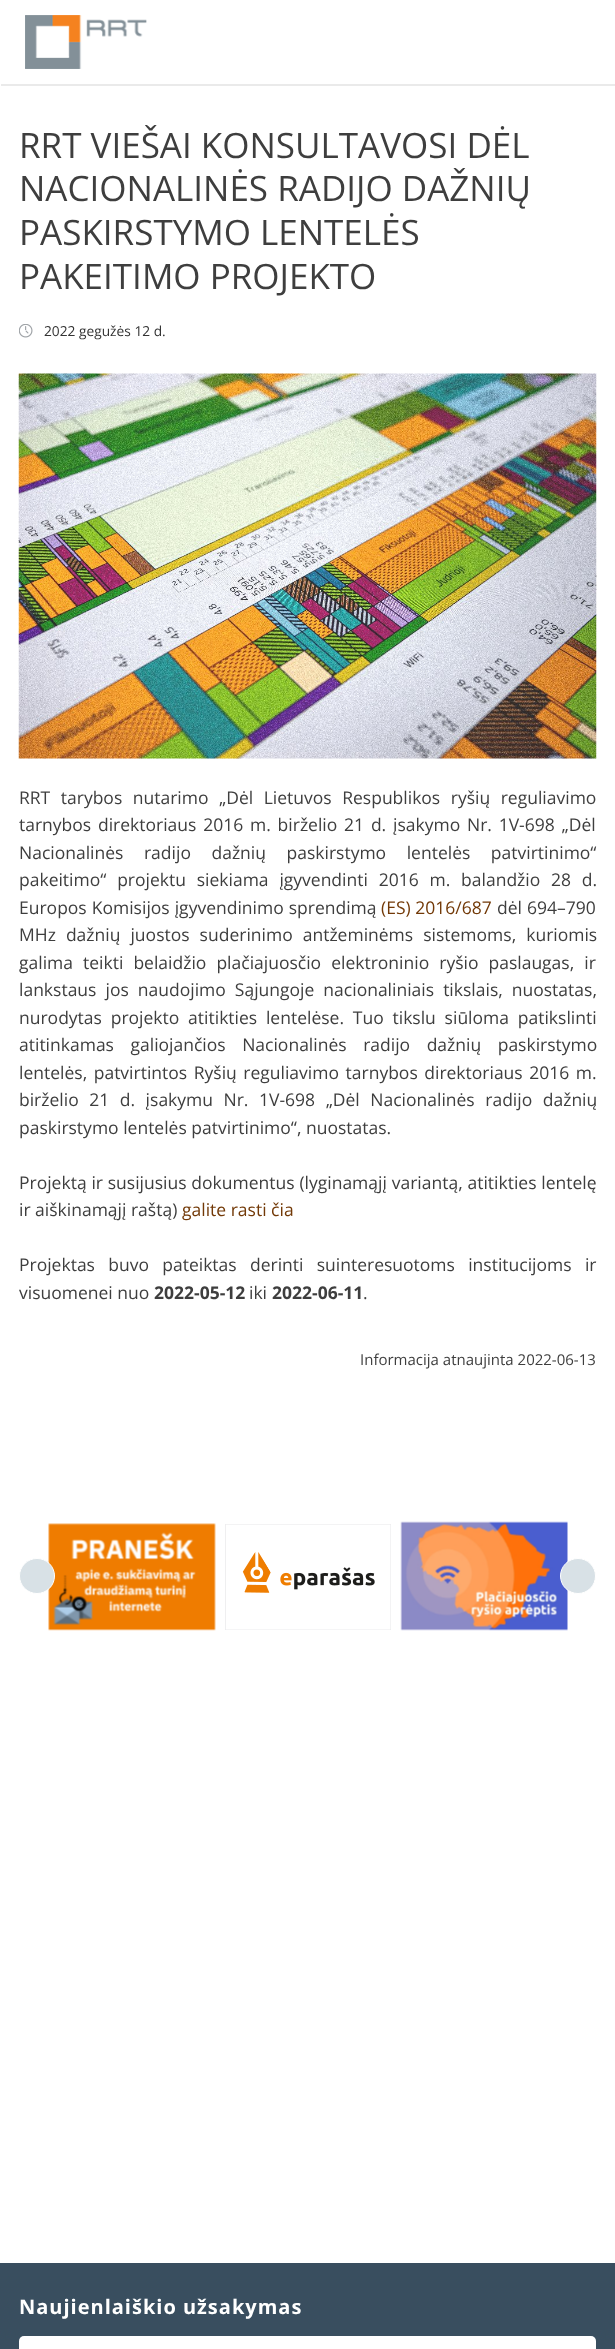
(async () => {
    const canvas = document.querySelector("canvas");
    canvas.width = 615;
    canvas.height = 2349;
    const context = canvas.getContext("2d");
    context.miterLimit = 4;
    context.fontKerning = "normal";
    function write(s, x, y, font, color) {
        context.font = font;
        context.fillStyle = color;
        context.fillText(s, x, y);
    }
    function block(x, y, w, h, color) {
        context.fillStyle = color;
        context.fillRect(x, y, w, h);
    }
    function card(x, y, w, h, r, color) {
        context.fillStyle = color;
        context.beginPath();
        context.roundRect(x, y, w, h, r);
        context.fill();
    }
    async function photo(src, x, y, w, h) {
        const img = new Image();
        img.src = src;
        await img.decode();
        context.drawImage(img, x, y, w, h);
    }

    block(0, 0, 615, 2349, "rgb(57, 78, 95)");
    block(0, 0, 615, 2263, "rgb(255, 255, 255)");
    context.fillStyle = "rgb(234, 234, 234)";
    context.beginPath();
    context.moveTo(1, 84);
    context.lineTo(1, 86);
    context.lineTo(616, 86);
    context.lineTo(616, 3);
    context.lineTo(615, 3);
    context.lineTo(615, 84);
    context.closePath();
    context.fill();
    await photo("media/1.png", 25, 15, 122, 54);
    write("RRT VIEŠAI KONSULTAVOSI DĖL", 19, 158, "35px Open Sans", "rgb(62, 62, 62)");
    write("NACIONALINĖS RADIJO DAŽNIŲ", 19, 201, "35px Open Sans", "rgb(62, 62, 62)");
    write("PASKIRSTYMO LENTELĖS", 19, 245, "35px Open Sans", "rgb(62, 62, 62)");
    write("PAKEITIMO PROJEKTO", 19, 289, "35px Open Sans", "rgb(62, 62, 62)");
    await photo("media/2.png", 19, 324, 14, 14);
    write("2022 gegužės 12 d.", 44, 336, "13.75px Open Sans", "rgb(51, 51, 51)");
    await photo("media/3.png", 18, 373, 579, 386);
    context.wordSpacing = "6px";
    write("RRT tarybos nutarimo „Dėl Lietuvos Respublikos ryšių reguliavimo", 19, 804, "17.5px Open Sans", "rgb(62, 62, 62)");
    context.wordSpacing = "2.25px";
    write("tarnybos direktoriaus 2016 m. birželio 21 d. įsakymo Nr. 1V-698 „Dėl", 19, 831, "17.5px Open Sans", "rgb(62, 62, 62)");
    context.wordSpacing = "16px";
    write("Nacionalinės radijo dažnių paskirstymo lentelės patvirtinimo“", 19, 859, "17.5px Open Sans", "rgb(62, 62, 62)");
    context.wordSpacing = "6.25px";
    write("pakeitimo“ projektu siekiama įgyvendinti 2016 m. balandžio 28 d.", 19, 886, "17.5px Open Sans", "rgb(62, 62, 62)");
    context.wordSpacing = "0.5px";
    write("Europos Komisijos įgyvendinimo sprendimą", 19, 914, "17.5px Open Sans", "rgb(62, 62, 62)");
    context.wordSpacing = "0px";
    write("(ES) 2016/687", 381, 914, "17.5px Open Sans", "rgb(114, 57, 7)");
    context.wordSpacing = "0.5px";
    write("dėl 694–790", 497, 914, "17.5px Open Sans", "rgb(62, 62, 62)");
    context.wordSpacing = "5.5px";
    write("MHz dažnių juostos suderinimo antžeminėms sistemoms, kuriomis", 19, 941, "17.5px Open Sans", "rgb(62, 62, 62)");
    write("galima teikti belaidžio plačiajuosčio elektroninio ryšio paslaugas, ir", 19, 969, "17.5px Open Sans", "rgb(62, 62, 62)");
    context.wordSpacing = "4.5px";
    write("lankstaus jos naudojimo Sąjungoje nacionaliniais tikslais, nuostatas,", 19, 996, "17.5px Open Sans", "rgb(62, 62, 62)");
    context.wordSpacing = "4.25px";
    write("nurodytas projekto atitikties lentelėse. Tuo tikslu siūloma patikslinti", 19, 1024, "17.5px Open Sans", "rgb(62, 62, 62)");
    context.wordSpacing = "12px";
    write("atitinkamas galiojančios Nacionalinės radijo dažnių paskirstymo", 19, 1051, "17.5px Open Sans", "rgb(62, 62, 62)");
    context.wordSpacing = "2px";
    write("lentelės, patvirtintos Ryšių reguliavimo tarnybos direktoriaus 2016 m.", 19, 1079, "17.5px Open Sans", "rgb(62, 62, 62)");
    context.wordSpacing = "6px";
    write("birželio 21 d. įsakymu Nr. 1V-698 „Dėl Nacionalinės radijo dažnių", 19, 1106, "17.5px Open Sans", "rgb(62, 62, 62)");
    context.wordSpacing = "0px";
    write("paskirstymo lentelės patvirtinimo“, nuostatas.", 19, 1134, "17.5px Open Sans", "rgb(62, 62, 62)");
    context.wordSpacing = "0.25px";
    write("Projektą ir susijusius dokumentus (lyginamąjį variantą, atitikties lentelę", 19, 1189, "17.5px Open Sans", "rgb(62, 62, 62)");
    context.wordSpacing = "0px";
    write("ir aiškinamąjį raštą)", 19, 1216, "17.5px Open Sans", "rgb(62, 62, 62)");
    write("galite rasti čia", 182, 1216, "17.5px Open Sans", "rgb(114, 57, 7)");
    context.wordSpacing = "8.75px";
    write("Projektas buvo pateiktas derinti suinteresuotoms institucijoms ir", 19, 1271, "17.5px Open Sans", "rgb(62, 62, 62)");
    context.wordSpacing = "0px";
    write("visuomenei nuo", 19, 1299, "17.5px Open Sans", "rgb(62, 62, 62)");
    write("2022-05-12", 154, 1299, "bold 17.5px Open Sans", "rgb(62, 62, 62)");
    write("iki", 249, 1299, "17.5px Open Sans", "rgb(62, 62, 62)");
    write("2022-06-11", 272, 1299, "bold 17.5px Open Sans", "rgb(62, 62, 62)");
    write(".", 363, 1299, "17.5px Open Sans", "rgb(62, 62, 62)");
    write("Informacija atnaujinta 2022-06-13", 360, 1365, "15px Open Sans", "rgb(62, 62, 62)");
    await photo("media/4.png", 48, 1523, 168, 108);
    context.fillStyle = "rgb(216, 225, 230)";
    context.beginPath();
    context.arc(37, 1576, 17.5, 0, Math.PI * 2);
    context.fill();
    context.strokeStyle = "rgb(255, 255, 255)";
    context.stroke();
    await photo("media/5.png", 225, 1524, 166, 106);
    await photo("media/6.png", 400, 1521, 168, 110);
    context.beginPath();
    context.arc(578, 1576, 17.5, 0, Math.PI * 2);
    context.fill();
    context.stroke();
    context.letterSpacing = "1px";
    write("Naujienlaiškio užsakymas", 19, 2314, "bold 20px Open Sans", "rgb(255, 255, 255)");
    card(19, 2336, 577, 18, 5, "rgb(255, 255, 255)");
})();
